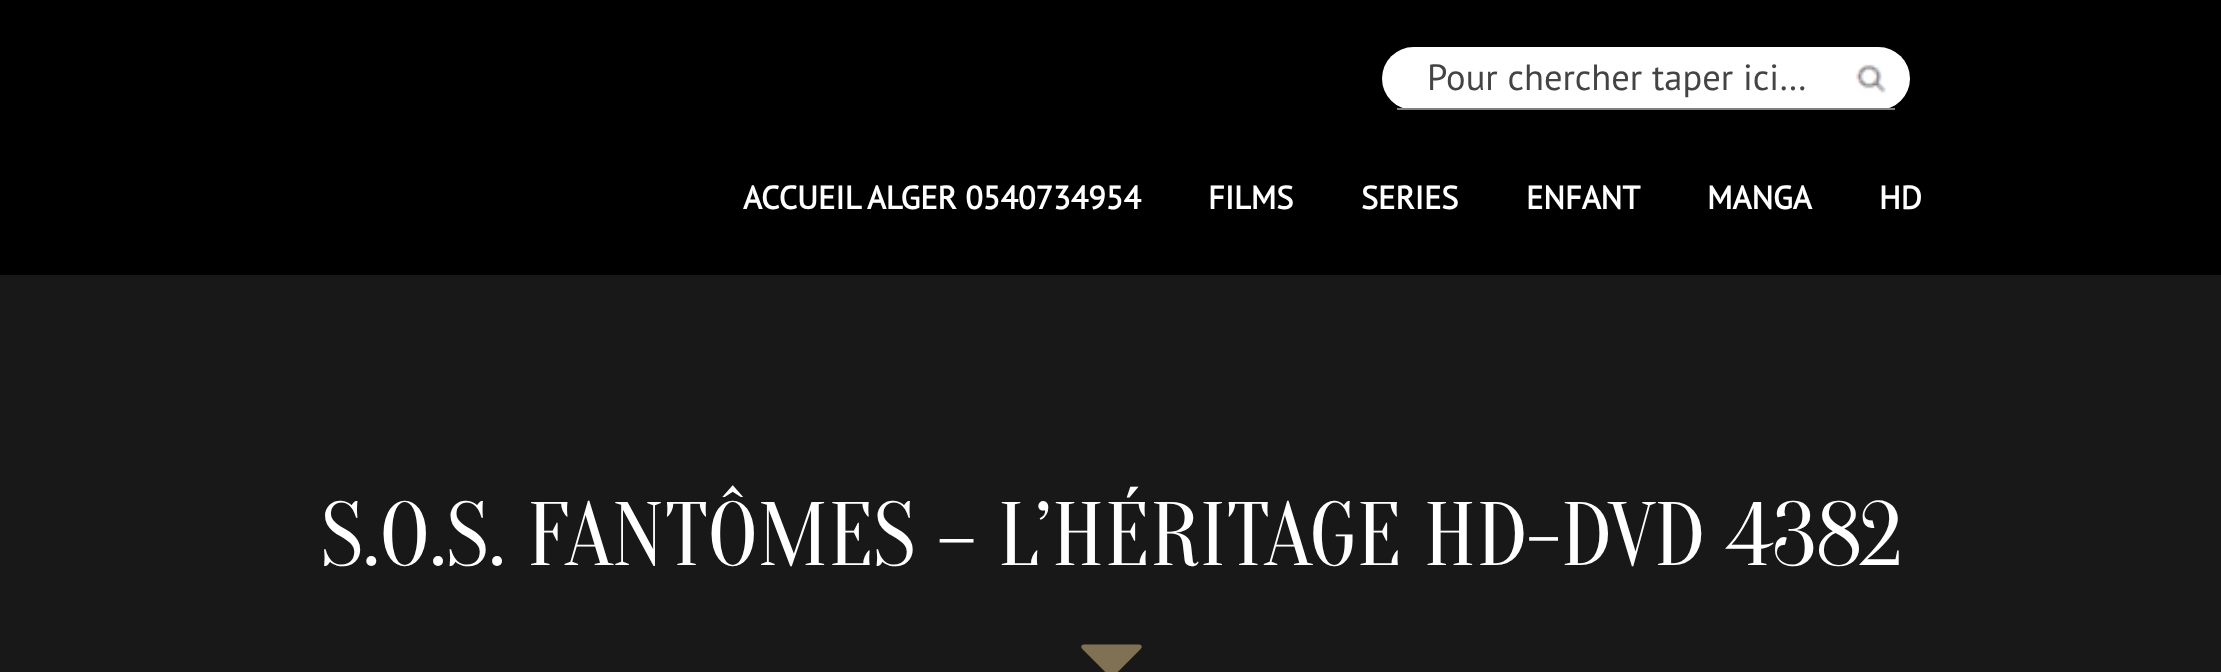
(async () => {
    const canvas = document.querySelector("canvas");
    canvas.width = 2221;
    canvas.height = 672;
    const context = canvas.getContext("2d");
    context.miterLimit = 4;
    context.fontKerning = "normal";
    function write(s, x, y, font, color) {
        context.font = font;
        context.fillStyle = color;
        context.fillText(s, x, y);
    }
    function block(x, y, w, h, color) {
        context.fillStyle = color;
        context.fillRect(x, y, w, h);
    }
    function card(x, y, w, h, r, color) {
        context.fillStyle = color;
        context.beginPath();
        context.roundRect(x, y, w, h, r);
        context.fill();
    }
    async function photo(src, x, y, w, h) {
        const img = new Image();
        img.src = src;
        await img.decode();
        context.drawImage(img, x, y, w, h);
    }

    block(0, 0, 2221, 672, "rgb(24, 24, 24)");
    block(0, 0, 2221, 275, "rgb(0, 0, 0)");
    card(1382, 47, 528, 63, 31.5, "rgb(255, 255, 255)");
    block(1397, 108, 498, 2, "rgb(128, 128, 128)");
    write("Pour chercher taper ici…", 1427, 90, "36.5px PT Sans", "rgb(68, 68, 68)");
    await photo("media/1.png", 1855, 64, 31, 29);
    write("ACCUEIL", 743, 209, "bold 32.25px PT Sans", "rgb(255, 255, 255)");
    write("ALGER 0540734954", 867, 209, "bold 32.25px PT Sans", "rgb(255, 255, 255)");
    write("FILMS", 1208, 209, "bold 32.25px PT Sans", "rgb(255, 255, 255)");
    write("SERIES", 1361, 209, "bold 32.25px PT Sans", "rgb(255, 255, 255)");
    write("ENFANT", 1526, 209, "bold 32.25px PT Sans", "rgb(255, 255, 255)");
    write("MANGA", 1707, 209, "bold 32.25px PT Sans", "rgb(255, 255, 255)");
    write("HD", 1879, 209, "bold 32.25px PT Sans", "rgb(255, 255, 255)");
    write("S.O.S. FANTÔMES – L’HÉRITAGE HD-DVD 4382", 321, 565, "90px Oranienbaum", "rgb(255, 255, 255)");
    await photo("media/2.png", 1081, 644, 61, 28);
})();
